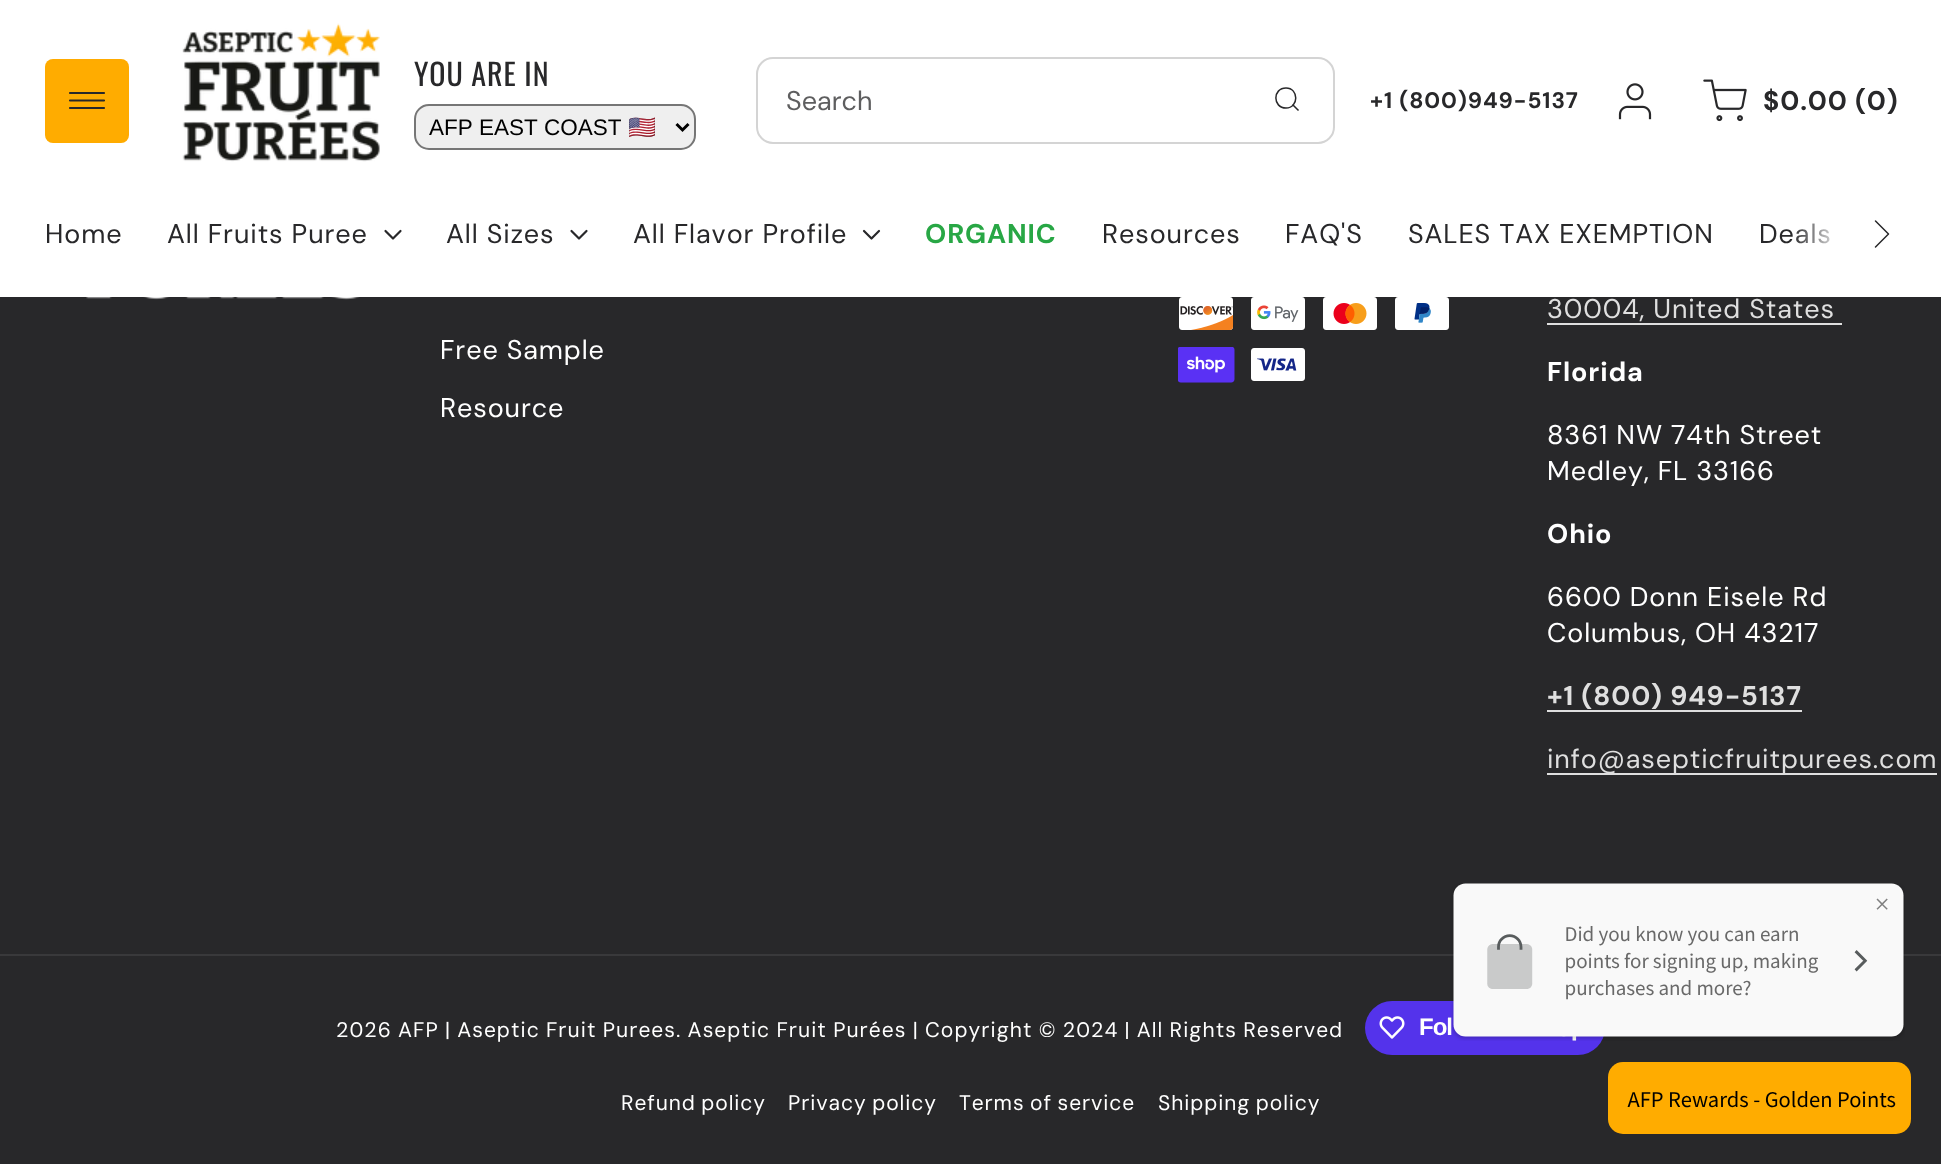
(async () => {
    const canvas = document.querySelector("canvas");
    canvas.width = 1941;
    canvas.height = 1164;
    const context = canvas.getContext("2d");
    context.miterLimit = 4;
    context.fontKerning = "none";
    function write(s, x, y, font, color) {
        context.font = font;
        context.fillStyle = color;
        context.fillText(s, x, y);
    }
    function block(x, y, w, h, color) {
        context.fillStyle = color;
        context.fillRect(x, y, w, h);
    }
    function card(x, y, w, h, r, color) {
        context.fillStyle = color;
        context.beginPath();
        context.roundRect(x, y, w, h, r);
        context.fill();
    }
    async function photo(src, x, y, w, h) {
        const img = new Image();
        img.src = src;
        await img.decode();
        context.drawImage(img, x, y, w, h);
    }
    let gradient;

    block(0, 0, 1941, 1164, "rgb(40, 40, 42)");
    block(0, 0, 1941, 297, "rgb(255, 255, 255)");
    card(45, 59, 84, 84, 8, "rgb(255, 172, 0)");
    context.beginPath();
    context.roundRect(46, 60, 82, 82, 7);
    context.strokeStyle = "rgba(255, 172, 0, 0.08)";
    context.lineWidth = 2;
    context.stroke();
    context.beginPath();
    context.moveTo(104, 100.5);
    context.lineTo(70, 100.5);
    context.moveTo(104, 93);
    context.lineTo(70, 93);
    context.moveTo(104, 108);
    context.lineTo(70, 108);
    context.strokeStyle = "rgb(40, 40, 42)";
    context.lineWidth = 2.2;
    context.lineCap = "round";
    context.lineJoin = "round";
    context.stroke();
    await photo("media/1.png", 182, 23, 198, 139);
    context.letterSpacing = "0.9px";
    write("YOU ARE IN", 414, 86, "30px Oswald", "rgb(40, 40, 42)");
    context.fillStyle = "rgb(239, 239, 239)";
    context.beginPath();
    context.roundRect(415, 105, 280, 44, 14);
    context.fill();
    context.strokeStyle = "rgb(118, 118, 118)";
    context.lineWidth = 2;
    context.lineJoin = "miter";
    context.stroke();
    context.beginPath();
    context.moveTo(676.5, 124);
    context.lineTo(682.5, 130);
    context.lineTo(688.5, 124);
    context.strokeStyle = "rgb(0, 0, 0)";
    context.lineWidth = 3;
    context.lineCap = "butt";
    context.stroke();
    context.letterSpacing = "0px";
    write("AFP EAST COAST", 429, 135, "22.5px Liberation Sans", "rgb(0, 0, 0)");
    write("🇺🇸", 628, 135, "22.5px Noto Color Emoji", "rgb(0, 0, 0)");
    context.beginPath();
    context.moveTo(1286, 108);
    context.bezierCurveTo(1299, 108, 1299, 88, 1286, 88);
    context.bezierCurveTo(1272.5, 88, 1272.5, 108, 1286, 108);
    context.closePath();
    context.strokeStyle = "rgb(40, 40, 42)";
    context.lineWidth = 1.5;
    context.lineCap = "round";
    context.lineJoin = "round";
    context.stroke();
    context.beginPath();
    context.moveTo(1298, 110);
    context.lineTo(1293, 105);
    context.lineCap = "square";
    context.stroke();
    context.beginPath();
    context.roundRect(757, 58, 577, 85, 16);
    context.strokeStyle = "rgb(212, 212, 212)";
    context.lineWidth = 2;
    context.lineJoin = "miter";
    context.stroke();
    write("Search", 786, 110, "27px DM Sans", "rgb(94, 94, 95)");
    context.letterSpacing = "0.9px";
    write("+1 (800)949-5137", 1370, 108, "bold 22.5px 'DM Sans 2'", "rgb(40, 40, 42)");
    await photo("media/2.png", 1618, 83, 34, 37);
    await photo("media/3.png", 1703, 79, 44, 43);
    write("$0.00 (0)", 1763, 110, "bold 27px DM Sans", "rgb(40, 40, 42)");
    write("Home", 45, 243, "27px DM Sans", "rgb(40, 40, 42)");
    write("All Fruits Puree", 167, 243, "27px DM Sans", "rgb(40, 40, 42)");
    context.beginPath();
    context.moveTo(400.5, 231);
    context.lineTo(393, 238.5);
    context.lineTo(385.5, 231);
    context.strokeStyle = "rgb(40, 40, 42)";
    context.lineWidth = 2.2;
    context.lineCap = "round";
    context.lineJoin = "round";
    context.stroke();
    write("All Sizes", 446, 243, "27px DM Sans", "rgb(40, 40, 42)");
    context.beginPath();
    context.moveTo(586.5, 231);
    context.lineTo(579, 238.5);
    context.lineTo(571.5, 231);
    context.stroke();
    write("All Flavor Profile", 633, 243, "27px DM Sans", "rgb(40, 40, 42)");
    context.beginPath();
    context.moveTo(879, 231);
    context.lineTo(871.5, 238.5);
    context.lineTo(864, 231);
    context.stroke();
    write("ORGANIC", 925, 243, "bold 27px DM Sans", "rgb(40, 167, 69)");
    write("Resources", 1102, 243, "27px DM Sans", "rgb(40, 40, 42)");
    write("FAQ'S", 1285, 243, "27px DM Sans", "rgb(40, 40, 42)");
    write("SALES TAX EXEMPTION", 1408, 243, "27px DM Sans", "rgb(40, 40, 42)");
    write("Deals", 1759, 243, "27px DM Sans", "rgb(40, 40, 42)");
    gradient = context.createLinearGradient(1791, 234, 1896, 234);
    gradient.addColorStop(0, "rgba(255, 255, 255, 0)");
    gradient.addColorStop(0.5, "rgb(255, 255, 255)");
    context.fillStyle = gradient;
    context.fillRect(1792, 223, 38, 21);
    context.beginPath();
    context.moveTo(1875.5, 247);
    context.lineTo(1888.5, 234);
    context.lineTo(1875.5, 221);
    context.lineWidth = 1.5;
    context.stroke();
    await photo("media/4.png", 86, 297, 274, 3);
    write("Free Sample", 440, 359, "27px DM Sans", "rgb(255, 255, 255)");
    write("Resource", 440, 417, "27px DM Sans", "rgb(255, 255, 255)");
    await photo("media/5.png", 1179, 297, 55, 33);
    await photo("media/6.png", 1251, 297, 54, 33);
    await photo("media/7.png", 1323, 297, 54, 33);
    await photo("media/8.png", 1395, 297, 54, 33);
    await photo("media/9.png", 1178, 347, 57, 36);
    await photo("media/10.png", 1251, 348, 54, 33);
    write("30004, United States", 1547, 318, "27px DM Sans", "rgb(223, 223, 223)");
    block(1547, 323, 295, 2, "rgb(223, 223, 223)");
    write("Florida", 1547, 381, "bold 27px DM Sans", "rgb(255, 255, 255)");
    write("8361 NW 74th Street", 1547, 444, "27px DM Sans", "rgb(255, 255, 255)");
    write("Medley, FL 33166", 1547, 480, "27px DM Sans", "rgb(255, 255, 255)");
    write("Ohio", 1547, 543, "bold 27px DM Sans", "rgb(255, 255, 255)");
    write("6600 Donn Eisele Rd", 1547, 606, "27px DM Sans", "rgb(255, 255, 255)");
    write("Columbus, OH 43217", 1547, 642, "27px DM Sans", "rgb(255, 255, 255)");
    write("+1 (800) 949-5137", 1547, 705, "bold 27px DM Sans", "rgb(223, 223, 223)");
    block(1547, 710, 255, 2, "rgb(223, 223, 223)");
    block(1547, 773, 390, 2, "rgb(223, 223, 223)");
    write("info@asepticfruitpurees.com", 1547, 768, "27px DM Sans", "rgb(223, 223, 223)");
    block(0, 954, 1941, 2, "rgb(57, 57, 59)");
    context.letterSpacing = "1.05px";
    write("2026", 336, 1037, "21px 'DM Sans 2'", "rgb(255, 255, 255)");
    context.wordSpacing = "-0.5px";
    write("AFP | Aseptic Fruit Purees", 398, 1037, "21px 'DM Sans 2'", "rgb(255, 255, 255)");
    write(". Aseptic Fruit Purées | Copyright © 2024 | All Rights Reserved", 676, 1037, "21px 'DM Sans 2'", "rgb(255, 255, 255)");
    card(1365, 1001, 240, 54, 27, "rgb(84, 51, 235)");
    await photo("media/11.png", 1379, 1016, 26, 23);
    context.letterSpacing = "-1px";
    context.wordSpacing = "0px";
    write("Fol", 1419, 1035, "bold 24px Liberation Sans", "rgb(255, 255, 255)");
    await photo("media/12.png", 1562, 1036, 15, 5);
    context.letterSpacing = "0.9px";
    context.wordSpacing = "-1px";
    write("Refund policy", 621, 1110, "21px 'DM Sans 2'", "rgb(255, 255, 255)");
    write("Privacy policy", 788, 1110, "21px 'DM Sans 2'", "rgb(255, 255, 255)");
    write("Terms of service", 959, 1110, "21px 'DM Sans 2'", "rgb(255, 255, 255)");
    write("Shipping policy", 1158, 1110, "21px 'DM Sans 2'", "rgb(255, 255, 255)");
    await photo("media/13.png", 1450, 883, 455, 158);
    await photo("media/14.png", 1608, 1062, 303, 72);
})();
